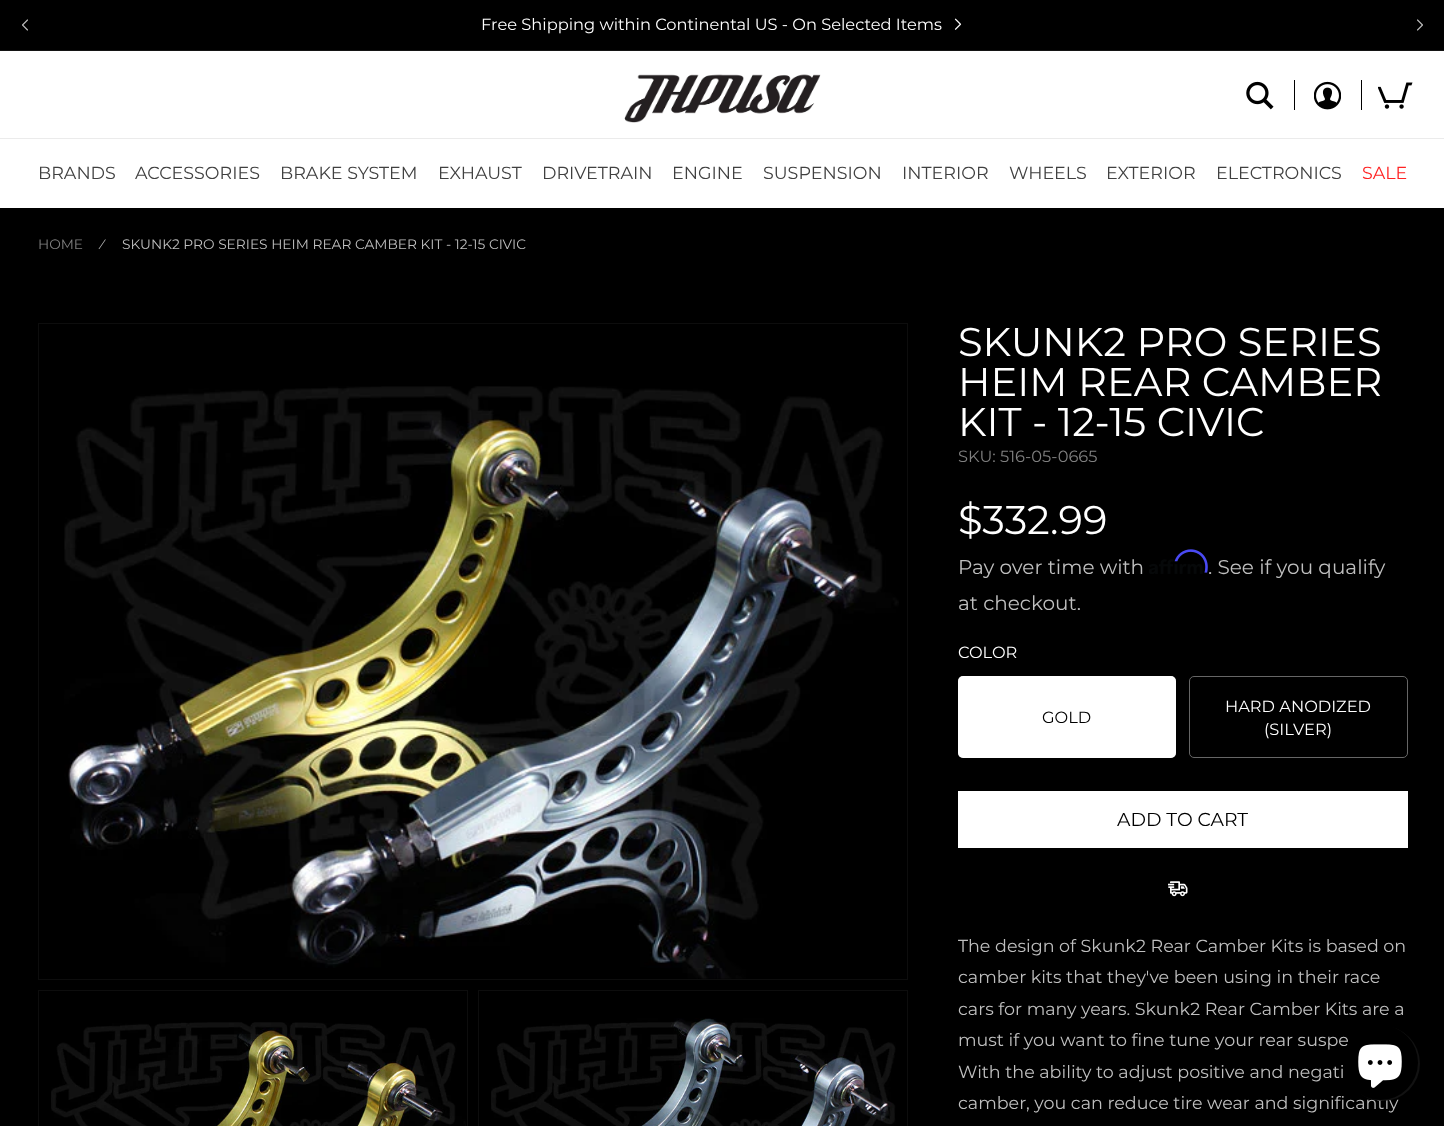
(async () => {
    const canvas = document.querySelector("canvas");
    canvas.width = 1444;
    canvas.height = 1126;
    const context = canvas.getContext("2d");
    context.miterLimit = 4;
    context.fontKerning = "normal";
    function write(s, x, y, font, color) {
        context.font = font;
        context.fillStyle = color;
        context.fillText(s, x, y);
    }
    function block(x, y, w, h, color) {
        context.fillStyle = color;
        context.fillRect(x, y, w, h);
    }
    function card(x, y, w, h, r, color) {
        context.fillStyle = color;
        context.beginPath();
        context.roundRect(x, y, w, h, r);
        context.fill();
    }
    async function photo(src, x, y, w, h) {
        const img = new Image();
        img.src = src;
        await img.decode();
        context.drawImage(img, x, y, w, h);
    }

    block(0, 0, 1444, 1126, "rgb(0, 0, 0)");
    await photo("media/1.png", 22, 19, 6, 12);
    block(0, 50, 1444, 1, "rgb(20, 20, 20)");
    write("Free Shipping within Continental US - On Selected Items", 481, 30, "16.25px Montserrat", "rgb(255, 255, 255)");
    await photo("media/2.png", 954, 18, 8, 12);
    await photo("media/3.png", 1417, 19, 6, 12);
    block(0, 51, 1444, 157, "rgb(255, 255, 255)");
    await photo("media/4.png", 624, 74, 197, 49);
    block(0, 138, 1444, 1, "rgb(235, 235, 235)");
    await photo("media/5.png", 1246, 81, 28, 29);
    block(1294, 80, 1, 30, "rgb(0, 0, 0)");
    await photo("media/6.png", 1314, 81, 27, 29);
    block(1361, 80, 1, 30, "rgb(0, 0, 0)");
    await photo("media/7.png", 1378, 82, 35, 27);
    write("BRANDS", 38, 179, "17.5px Montserrat", "rgb(64, 64, 64)");
    write("ACCESSORIES", 135, 179, "17.5px Montserrat", "rgb(64, 64, 64)");
    write("BRAKE SYSTEM", 280, 179, "17.5px Montserrat", "rgb(64, 64, 64)");
    write("EXHAUST", 438, 179, "17.5px Montserrat", "rgb(64, 64, 64)");
    write("DRIVETRAIN", 542, 179, "17.5px Montserrat", "rgb(64, 64, 64)");
    write("ENGINE", 672, 179, "17.5px Montserrat", "rgb(64, 64, 64)");
    write("SUSPENSION", 763, 179, "17.5px Montserrat", "rgb(64, 64, 64)");
    write("INTERIOR", 902, 179, "17.5px Montserrat", "rgb(64, 64, 64)");
    write("WHEELS", 1009, 179, "17.5px Montserrat", "rgb(64, 64, 64)");
    write("EXTERIOR", 1106, 179, "17.5px Montserrat", "rgb(64, 64, 64)");
    write("ELECTRONICS", 1216, 179, "17.5px Montserrat", "rgb(64, 64, 64)");
    write("SALE", 1362, 179, "17.5px Montserrat", "rgb(255, 34, 34)");
    write("HOME", 38, 249, "13.75px Montserrat", "rgb(128, 128, 128)");
    write("⁄", 101, 249, "13.75px Montserrat", "rgb(191, 191, 191)");
    write("SKUNK2 PRO SERIES HEIM REAR CAMBER KIT - 12-15 CIVIC", 122, 249, "13.75px Montserrat", "rgb(191, 191, 191)");
    context.strokeStyle = "rgb(13, 13, 13)";
    context.strokeRect(38.5, 323.5, 869, 656);
    await photo("media/8.png", 64, 386, 835, 593);
    context.strokeRect(38.5, 990.5, 429, 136);
    await photo("media/9.png", 51, 1022, 415, 104);
    context.strokeRect(478.5, 990.5, 429, 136);
    await photo("media/10.png", 491, 1018, 405, 108);
    write("SKUNK2 PRO SERIES", 958, 356, "40px Montserrat", "rgb(255, 255, 255)");
    write("HEIM REAR CAMBER", 958, 396, "40px Montserrat", "rgb(255, 255, 255)");
    write("KIT - 12-15 CIVIC", 958, 436, "40px Montserrat", "rgb(255, 255, 255)");
    write("SKU: 516-05-0665", 958, 462, "16.25px Montserrat", "rgb(128, 128, 128)");
    write("$332.99", 958, 534, "40px Montserrat", "rgb(255, 255, 255)");
    write("Pay over time with", 958, 574, "20px Montserrat", "rgb(191, 191, 191)");
    await photo("media/12.png", 1149, 559, 54, 15);
    await photo("media/11.png", 1174, 549, 34, 24);
    write(". See if you qualify", 1208, 574, "20px Montserrat", "rgb(191, 191, 191)");
    write("at checkout.", 958, 610, "20px Montserrat", "rgb(191, 191, 191)");
    write("COLOR", 958, 658, "16.25px Montserrat", "rgb(255, 255, 255)");
    card(958, 676, 218, 82, 5, "rgb(255, 255, 255)");
    context.beginPath();
    context.roundRect(958.5, 676.5, 217, 81, 4.5);
    context.strokeStyle = "rgba(255, 255, 255, 0.4)";
    context.stroke();
    write("GOLD", 1042, 723, "16.25px Montserrat", "rgb(0, 0, 0)");
    context.beginPath();
    context.roundRect(1189.5, 676.5, 218, 81, 4.5);
    context.strokeStyle = "rgb(102, 102, 102)";
    context.stroke();
    write("HARD ANODIZED", 1225, 712, "16.25px Montserrat", "rgb(255, 255, 255)");
    write("(SILVER)", 1264, 735, "16.25px Montserrat", "rgb(255, 255, 255)");
    block(958, 791, 450, 57, "rgb(255, 255, 255)");
    write("ADD TO CART", 1117, 826, "18.75px Montserrat", "rgb(0, 0, 0)");
    await photo("media/13.png", 1168, 881, 20, 16);
    write("The design of Skunk2 Rear Camber Kits is based on", 958, 952, "17.5px Montserrat", "rgb(191, 191, 191)");
    write("camber kits that they've been using in their race", 958, 983, "17.5px Montserrat", "rgb(191, 191, 191)");
    write("cars for many years. Skunk2 Rear Camber Kits are a", 958, 1015, "17.5px Montserrat", "rgb(191, 191, 191)");
    write("must if you want to fine tune your rear suspe", 958, 1046, "17.5px Montserrat", "rgb(191, 191, 191)");
    write("With the ability to adjust positive and negati", 958, 1078, "17.5px Montserrat", "rgb(191, 191, 191)");
    write("camber, you can reduce tire wear and significantly", 958, 1109, "17.5px Montserrat", "rgb(191, 191, 191)");
    context.fillStyle = "rgb(18, 18, 18)";
    context.beginPath();
    context.arc(1382.5, 1063.5, 37.5, 0, Math.PI * 2);
    context.fill();
    context.fillStyle = "rgb(0, 0, 0)";
    context.beginPath();
    context.arc(1380.5, 1062.5, 37.5, 0, Math.PI * 2);
    context.fill();
    await photo("media/14.png", 1358, 1044, 44, 44);
})();
